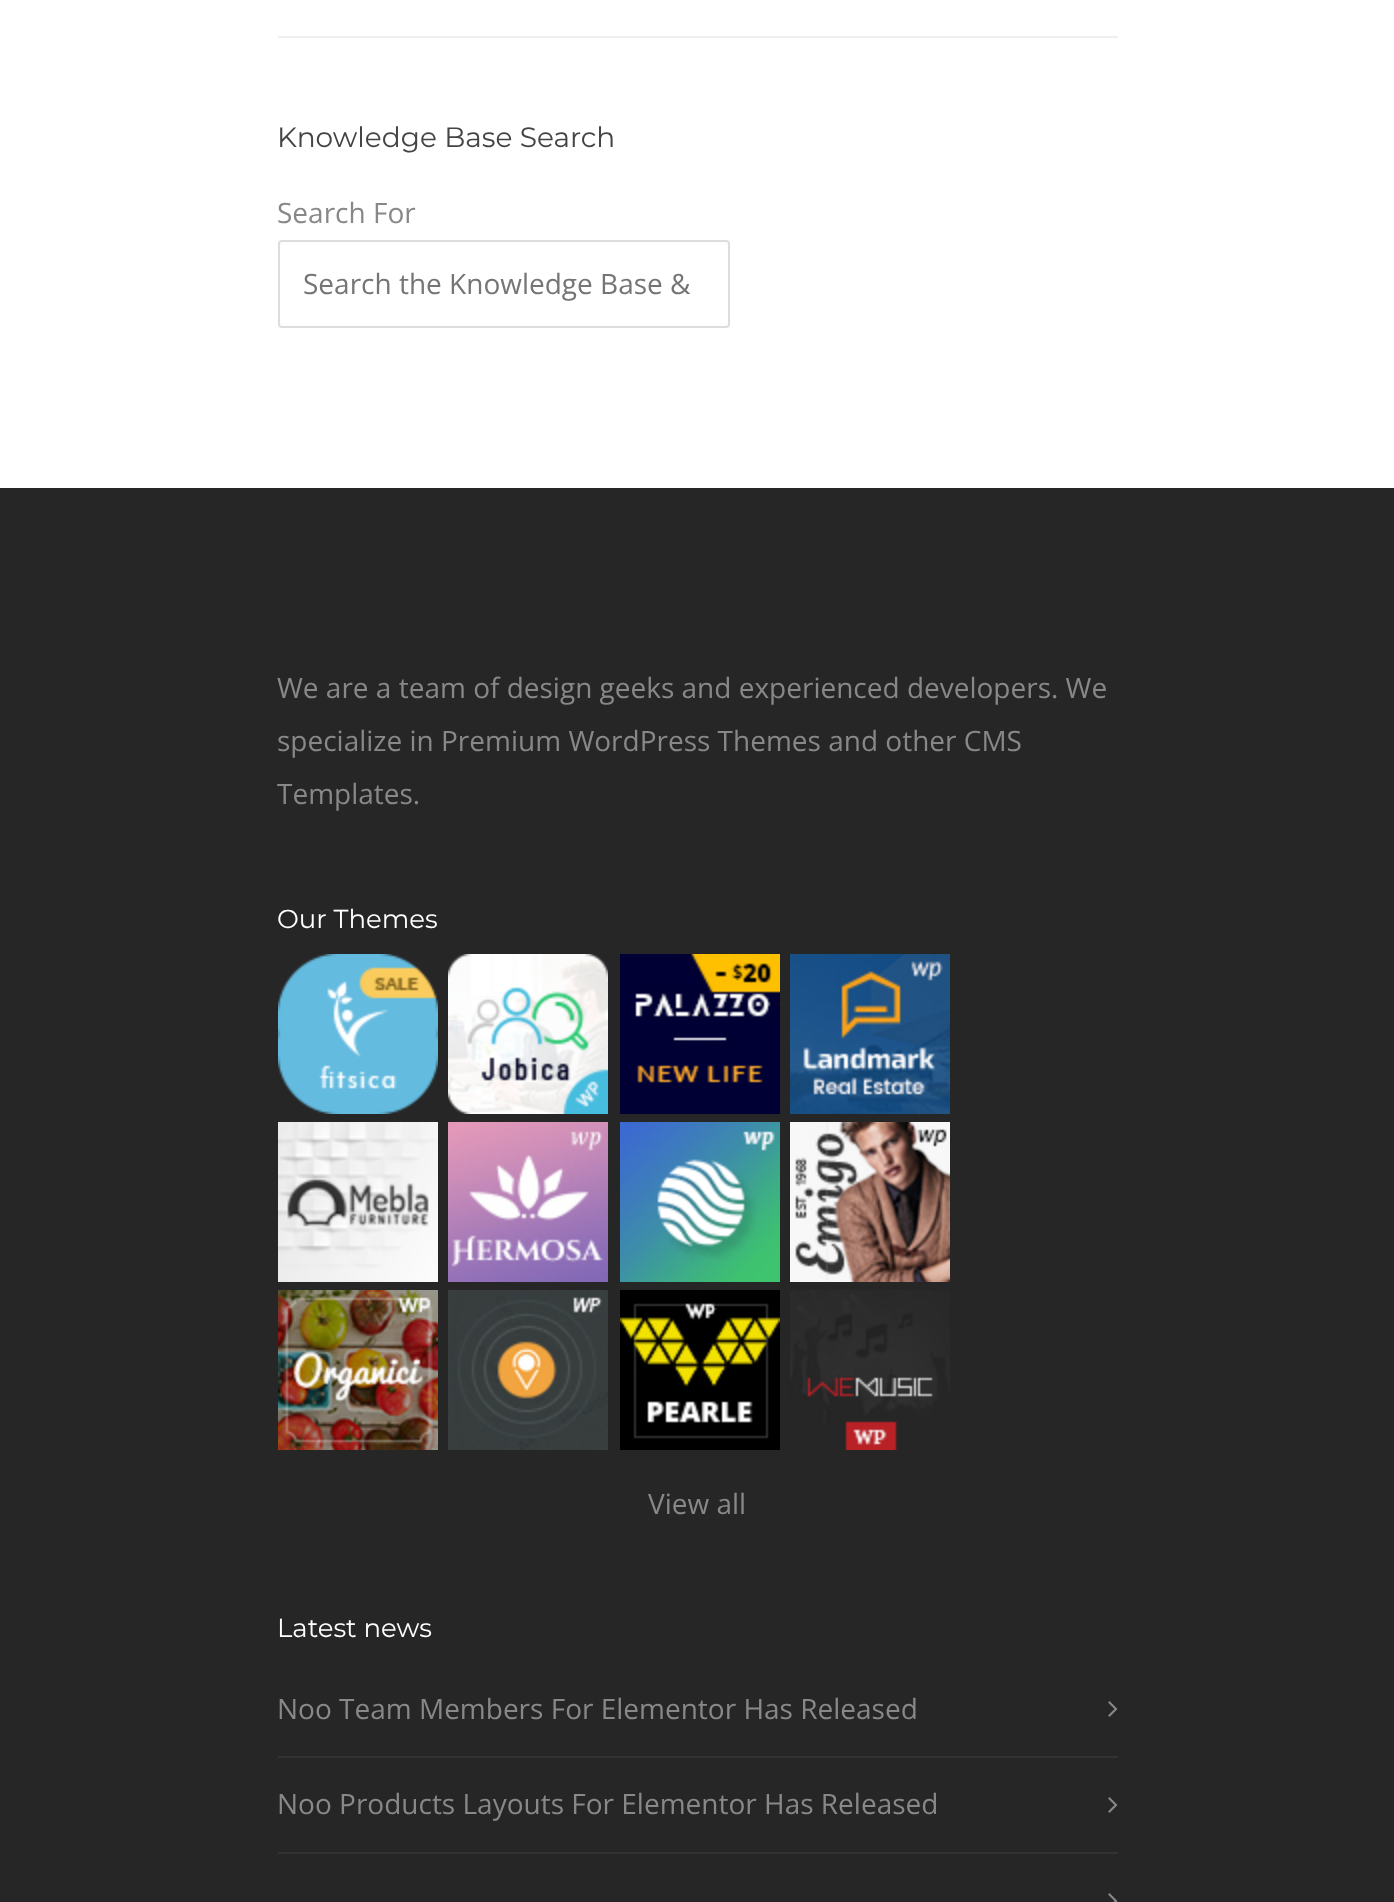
(async () => {
    const canvas = document.querySelector("canvas");
    canvas.width = 1394;
    canvas.height = 1902;
    const context = canvas.getContext("2d");
    context.miterLimit = 4;
    context.fontKerning = "normal";
    function write(s, x, y, font, color) {
        context.font = font;
        context.fillStyle = color;
        context.fillText(s, x, y);
    }
    function block(x, y, w, h, color) {
        context.fillStyle = color;
        context.fillRect(x, y, w, h);
    }
    async function photo(src, x, y, w, h) {
        const img = new Image();
        img.src = src;
        await img.decode();
        context.drawImage(img, x, y, w, h);
    }

    block(0, 0, 1394, 1902, "rgb(255, 255, 255)");
    block(278, 36, 840, 2, "rgb(239, 239, 239)");
    write("Knowledge Base Search", 277, 147, "28px Montserrat", "rgb(68, 68, 68)");
    write("Search For", 277, 223, "28px Open Sans", "rgb(136, 136, 136)");
    context.beginPath();
    context.roundRect(279, 241, 450, 86, 3);
    context.strokeStyle = "rgb(221, 221, 221)";
    context.lineWidth = 2;
    context.stroke();
    write("Search the Knowledge Base &", 303, 294, "28px Open Sans", "rgb(117, 117, 117)");
    block(0, 488, 1394, 1414, "rgb(38, 38, 38)");
    write("We are a team of design geeks and experienced developers. We", 277, 698, "28px Open Sans", "rgb(136, 136, 136)");
    write("specialize in Premium WordPress Themes and other CMS", 277, 751, "28px Open Sans", "rgb(136, 136, 136)");
    write("Templates.", 277, 804, "28px Open Sans", "rgb(136, 136, 136)");
    write("Our Themes", 277, 928, "26px Montserrat", "rgb(255, 255, 255)");
    await photo("media/1.png", 278, 954, 160, 160);
    await photo("media/2.png", 448, 954, 160, 160);
    await photo("media/3.png", 620, 954, 160, 160);
    await photo("media/4.png", 790, 954, 160, 160);
    await photo("media/5.png", 278, 1122, 160, 160);
    await photo("media/6.png", 448, 1122, 160, 160);
    await photo("media/7.png", 620, 1122, 160, 160);
    await photo("media/8.png", 790, 1122, 160, 160);
    await photo("media/9.png", 278, 1290, 160, 160);
    await photo("media/10.png", 448, 1290, 160, 160);
    await photo("media/11.png", 620, 1290, 160, 160);
    await photo("media/12.png", 790, 1290, 160, 160);
    write("View all", 648, 1514, "28px Open Sans", "rgb(136, 136, 136)");
    write("Latest news", 277, 1637, "26px Montserrat", "rgb(255, 255, 255)");
    block(278, 1756, 840, 2, "rgb(51, 51, 51)");
    write("Noo Team Members For Elementor Has Released", 277, 1719, "28px Open Sans", "rgb(136, 136, 136)");
    await photo("media/13.png", 1108, 1701, 10, 16);
    block(278, 1852, 840, 2, "rgb(51, 51, 51)");
    write("Noo Products Layouts For Elementor Has Released", 277, 1814, "28px Open Sans", "rgb(136, 136, 136)");
    await photo("media/13.png", 1108, 1797, 10, 16);
    await photo("media/14.png", 1108, 1893, 10, 9);
})();
